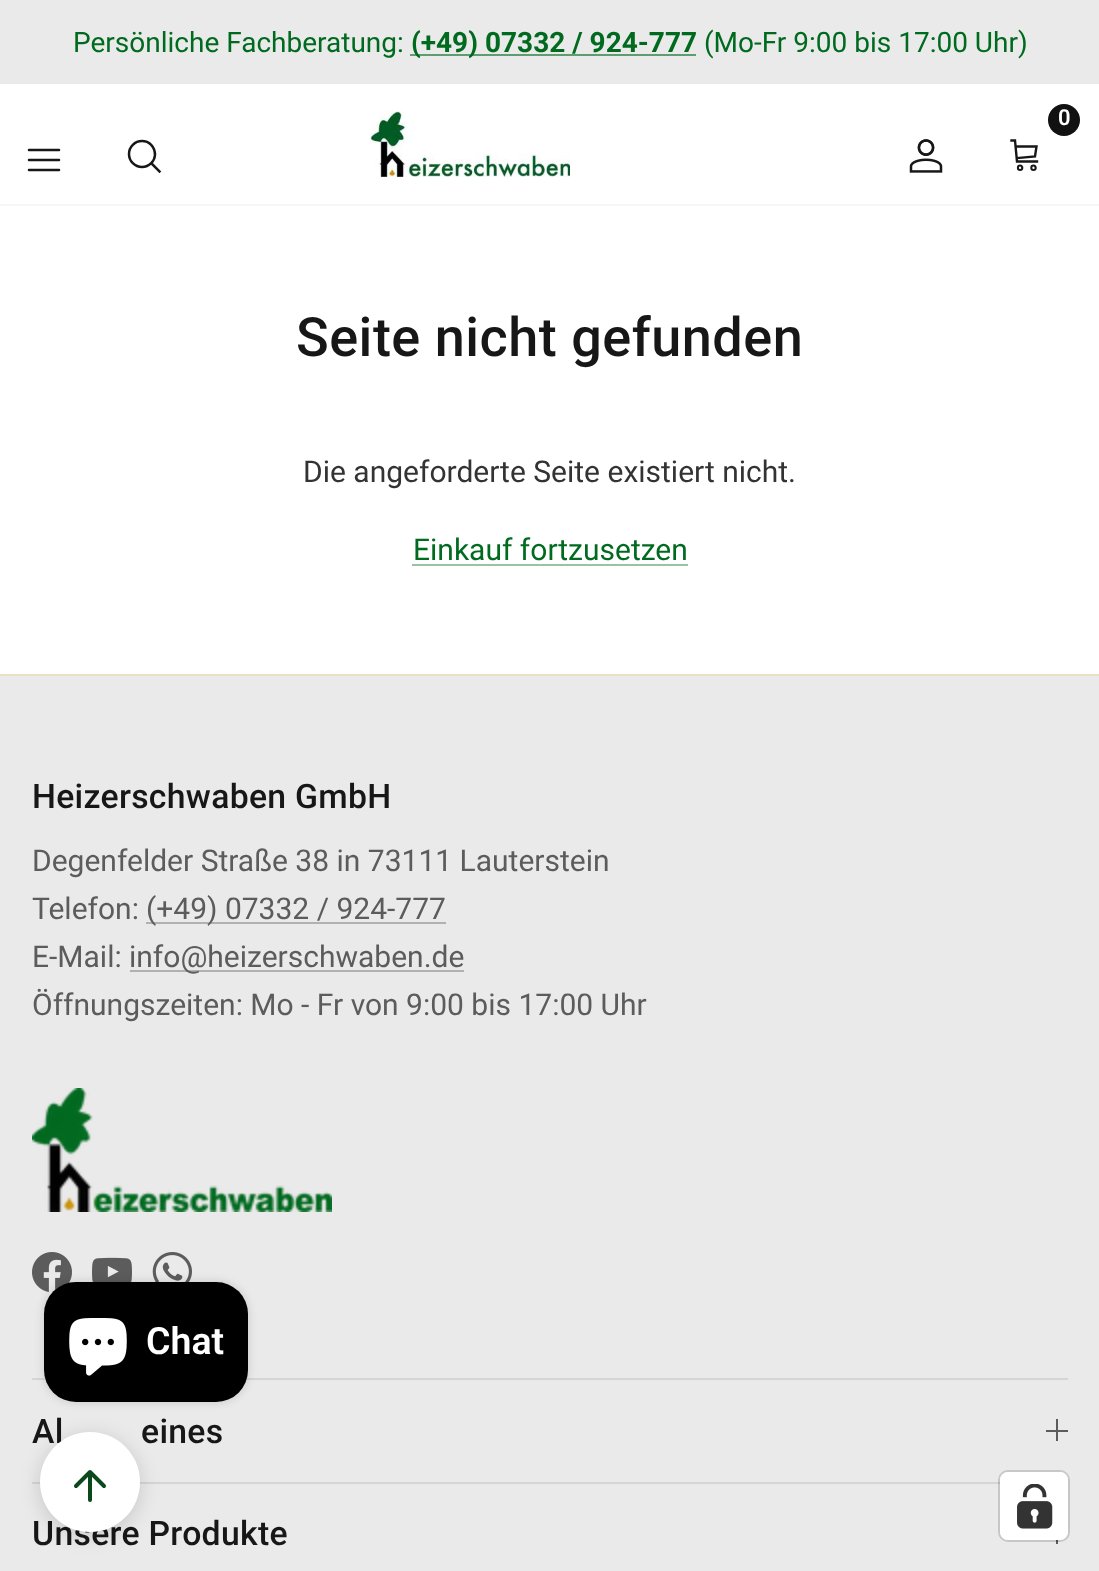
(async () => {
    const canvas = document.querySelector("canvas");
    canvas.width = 1099;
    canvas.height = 1571;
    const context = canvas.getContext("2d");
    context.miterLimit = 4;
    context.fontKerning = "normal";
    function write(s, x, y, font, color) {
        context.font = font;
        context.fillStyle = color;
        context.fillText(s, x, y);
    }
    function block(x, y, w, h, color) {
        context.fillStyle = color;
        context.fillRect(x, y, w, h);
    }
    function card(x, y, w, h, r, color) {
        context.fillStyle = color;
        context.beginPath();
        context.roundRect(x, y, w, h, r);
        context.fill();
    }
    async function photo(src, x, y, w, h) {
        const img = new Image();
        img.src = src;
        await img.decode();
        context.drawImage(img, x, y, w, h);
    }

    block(0, 0, 1099, 1571, "rgb(255, 255, 255)");
    block(0, 0, 1099, 84, "rgb(234, 234, 234)");
    write("Persönliche Fachberatung:", 73, 52, "28px Roboto", "rgb(0, 106, 31)");
    block(410, 54, 286, 2, "rgb(94, 157, 112)");
    write("(+49) 07332 / 924-777", 411, 52, "bold 28px Roboto", "rgb(0, 106, 31)");
    write("(Mo-Fr 9:00 bis 17:00 Uhr)", 704, 52, "28px Roboto", "rgb(0, 106, 31)");
    block(0, 204, 1099, 2, "rgb(244, 246, 248)");
    context.beginPath();
    context.moveTo(29, 160);
    context.lineTo(59, 160);
    context.moveTo(29, 150);
    context.lineTo(59, 150);
    context.moveTo(29, 170);
    context.lineTo(59, 170);
    context.strokeStyle = "rgb(23, 23, 23)";
    context.lineWidth = 2.5;
    context.lineCap = "round";
    context.lineJoin = "round";
    context.stroke();
    await photo("media/1.png", 370, 111, 200, 66);
    context.fillStyle = "rgb(17, 17, 17)";
    context.beginPath();
    context.arc(1064, 120, 16, 0, Math.PI * 2);
    context.fill();
    write("0", 1058, 125, "600 22px Roboto", "rgb(255, 255, 255)");
    context.beginPath();
    context.moveTo(1011.5, 140.5);
    context.lineTo(1015, 140.5);
    context.lineTo(1017, 161.5);
    context.lineTo(1037, 161.5);
    context.moveTo(1016, 146.5);
    context.lineTo(1036.5, 146.5);
    context.lineTo(1035, 156.5);
    context.lineTo(1018, 158);
    context.lineWidth = 2.4;
    context.lineCap = "square";
    context.lineJoin = "miter";
    context.stroke();
    context.beginPath();
    context.arc(1020.1, 167.7, 2.2, 0, Math.PI * 2);
    context.lineWidth = 2;
    context.stroke();
    context.beginPath();
    context.arc(1033.5, 167.7, 2.2, 0, Math.PI * 2);
    context.stroke();
    context.beginPath();
    context.arc(142, 154, 13, 0, Math.PI * 2);
    context.lineWidth = 2.5;
    context.stroke();
    context.beginPath();
    context.moveTo(152.5, 164.5);
    context.lineTo(159.5, 171.5);
    context.stroke();
    await photo("media/2.png", 909, 139, 34, 34);
    context.letterSpacing = "0.5px";
    write("Seite nicht gefunden", 296, 356, "500 54px Roboto", "rgb(23, 23, 23)");
    context.letterSpacing = "0px";
    write("Die angeforderte Seite existiert nicht.", 303, 482, "30px Roboto", "rgb(51, 51, 51)");
    write("Einkauf fortzusetzen", 413, 560, "30px Roboto", "rgb(0, 106, 31)");
    block(412, 564, 276, 2, "rgb(153, 195, 165)");
    block(0, 676, 1099, 895, "rgb(234, 234, 234)");
    block(0, 674, 1099, 2, "rgb(239, 223, 199)");
    context.letterSpacing = "0.3px";
    write("Heizerschwaben GmbH", 32, 808, "500 33.75px Roboto", "rgb(23, 23, 23)");
    context.letterSpacing = "0px";
    write("Degenfelder Straße 38 in 73111 Lauterstein", 32, 871, "30px Roboto", "rgb(92, 92, 92)");
    write("Telefon:", 32, 919, "30px Roboto", "rgb(92, 92, 92)");
    block(146, 922, 300, 2, "rgb(177, 177, 177)");
    write("(+49) 07332 / 924-777", 146, 919, "30px Roboto", "rgb(92, 92, 92)");
    write("E-Mail:", 32, 967, "30px Roboto", "rgb(92, 92, 92)");
    block(130, 970, 334, 2, "rgb(177, 177, 177)");
    write("info@heizerschwaben.de", 129, 967, "30px Roboto", "rgb(92, 92, 92)");
    write("Öffnungszeiten: Mo - Fr von 9:00 bis 17:00 Uhr", 32, 1015, "30px Roboto", "rgb(92, 92, 92)");
    await photo("media/3.png", 32, 1088, 300, 124);
    await photo("media/4.png", 32, 1252, 40, 40);
    await photo("media/5.png", 92, 1257, 40, 25);
    await photo("media/6.png", 152, 1252, 40, 30);
    block(32, 1378, 1036, 2, "rgb(213, 213, 213)");
    context.letterSpacing = "0.3px";
    write("Al", 32, 1443, "500 33.75px Roboto", "rgb(23, 23, 23)");
    write("eines", 141, 1443, "500 33.75px Roboto", "rgb(23, 23, 23)");
    block(1056, 1419, 2, 22, "rgb(92, 92, 92)");
    block(1046, 1430, 22, 2, "rgb(92, 92, 92)");
    block(32, 1482, 968, 2, "rgb(213, 213, 213)");
    write("Unsere Produkte", 32, 1545, "500 33.75px Roboto", "rgb(23, 23, 23)");
    block(1056, 1540, 2, 4, "rgb(92, 92, 92)");
    context.fillStyle = "rgba(0, 0, 0, 0.15)";
    context.filter = "blur(5px)";
    context.beginPath();
    context.roundRect(44, 1282, 204, 120, 32);
    context.fill();
    context.filter = "none";
    card(44, 1282, 204, 120, 32, "rgb(0, 0, 0)");
    await photo("media/7.png", 69, 1318, 58, 58);
    context.letterSpacing = "0px";
    write("Chat", 146, 1354, "600 37.5px Roboto", "rgb(255, 255, 255)");
    context.fillStyle = "rgba(0, 0, 0, 0.15)";
    context.filter = "blur(10px)";
    context.beginPath();
    context.roundRect(40, 1436, 100, 100, 50);
    context.fill();
    context.filter = "none";
    context.fillStyle = "rgb(255, 255, 255)";
    context.beginPath();
    context.arc(90, 1482, 50, 0, Math.PI * 2);
    context.fill();
    context.beginPath();
    context.moveTo(90, 1500);
    context.lineTo(90, 1472);
    context.moveTo(76, 1486);
    context.lineTo(90, 1472);
    context.lineTo(104, 1486);
    context.strokeStyle = "rgb(11, 72, 27)";
    context.lineWidth = 4;
    context.lineCap = "round";
    context.lineJoin = "round";
    context.stroke();
    context.beginPath();
    context.roundRect(999, 1471, 70, 70, 9);
    context.strokeStyle = "rgba(0, 0, 0, 0.15)";
    context.lineWidth = 2;
    context.lineJoin = "miter";
    context.stroke();
    card(1000, 1472, 68, 68, 8, "rgb(255, 255, 255)");
    await photo("media/8.png", 1017, 1484, 36, 45);
})();
